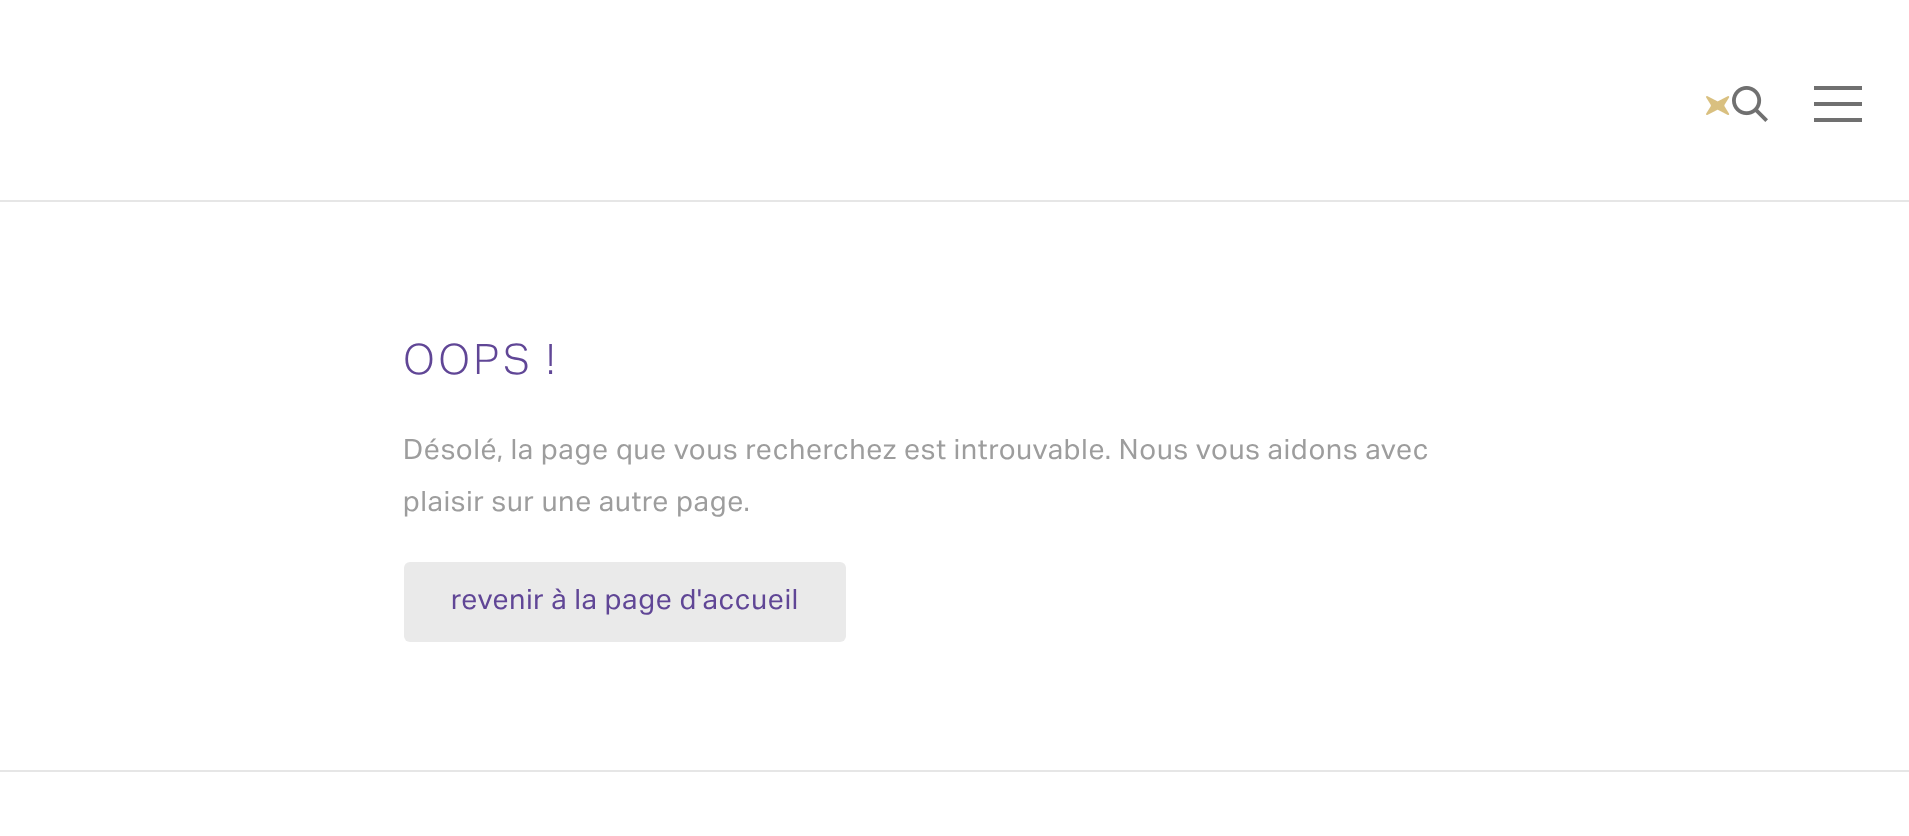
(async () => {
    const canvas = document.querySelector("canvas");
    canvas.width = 1909;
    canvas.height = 836;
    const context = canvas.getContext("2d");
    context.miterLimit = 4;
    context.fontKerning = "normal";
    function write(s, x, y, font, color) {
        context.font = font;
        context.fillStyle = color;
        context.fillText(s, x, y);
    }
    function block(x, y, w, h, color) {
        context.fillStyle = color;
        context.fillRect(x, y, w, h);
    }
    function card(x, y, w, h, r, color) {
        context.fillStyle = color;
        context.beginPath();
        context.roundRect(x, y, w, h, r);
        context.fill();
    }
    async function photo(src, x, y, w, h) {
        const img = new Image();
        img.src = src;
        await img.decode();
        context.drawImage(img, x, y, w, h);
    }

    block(0, 0, 1909, 836, "rgb(255, 255, 255)");
    block(0, 200, 1909, 2, "rgb(230, 230, 230)");
    await photo("media/1.png", 1706, 96, 24, 19);
    await photo("media/2.png", 1732, 86, 36, 36);
    context.fillStyle = "rgb(112, 112, 112)";
    context.beginPath();
    context.moveTo(1862, 118);
    context.lineTo(1862, 122);
    context.lineTo(1814, 122);
    context.lineTo(1814, 118);
    context.closePath();
    context.moveTo(1862, 102);
    context.lineTo(1862, 106);
    context.lineTo(1814, 106);
    context.lineTo(1814, 102);
    context.closePath();
    context.moveTo(1862, 86);
    context.lineTo(1862, 90);
    context.lineTo(1814, 90);
    context.lineTo(1814, 86);
    context.closePath();
    context.fill();
    context.letterSpacing = "3.5px";
    write("OOPS !", 403, 374, "300 42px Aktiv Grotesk", "rgb(96, 70, 150)");
    context.letterSpacing = "0.85px";
    write("Désolé, la page que vous recherchez est introuvable. Nous vous aidons avec", 403, 459, "28px Aktiv Grotesk", "rgb(157, 157, 157)");
    write("plaisir sur une autre page.", 403, 511, "28px Aktiv Grotesk", "rgb(157, 157, 157)");
    card(404, 562, 442, 80, 6, "rgb(234, 234, 234)");
    write("revenir à la page d'accueil", 451, 609, "28px Aktiv Grotesk", "rgb(96, 70, 150)");
    block(0, 770, 1909, 2, "rgb(230, 230, 230)");
})();
